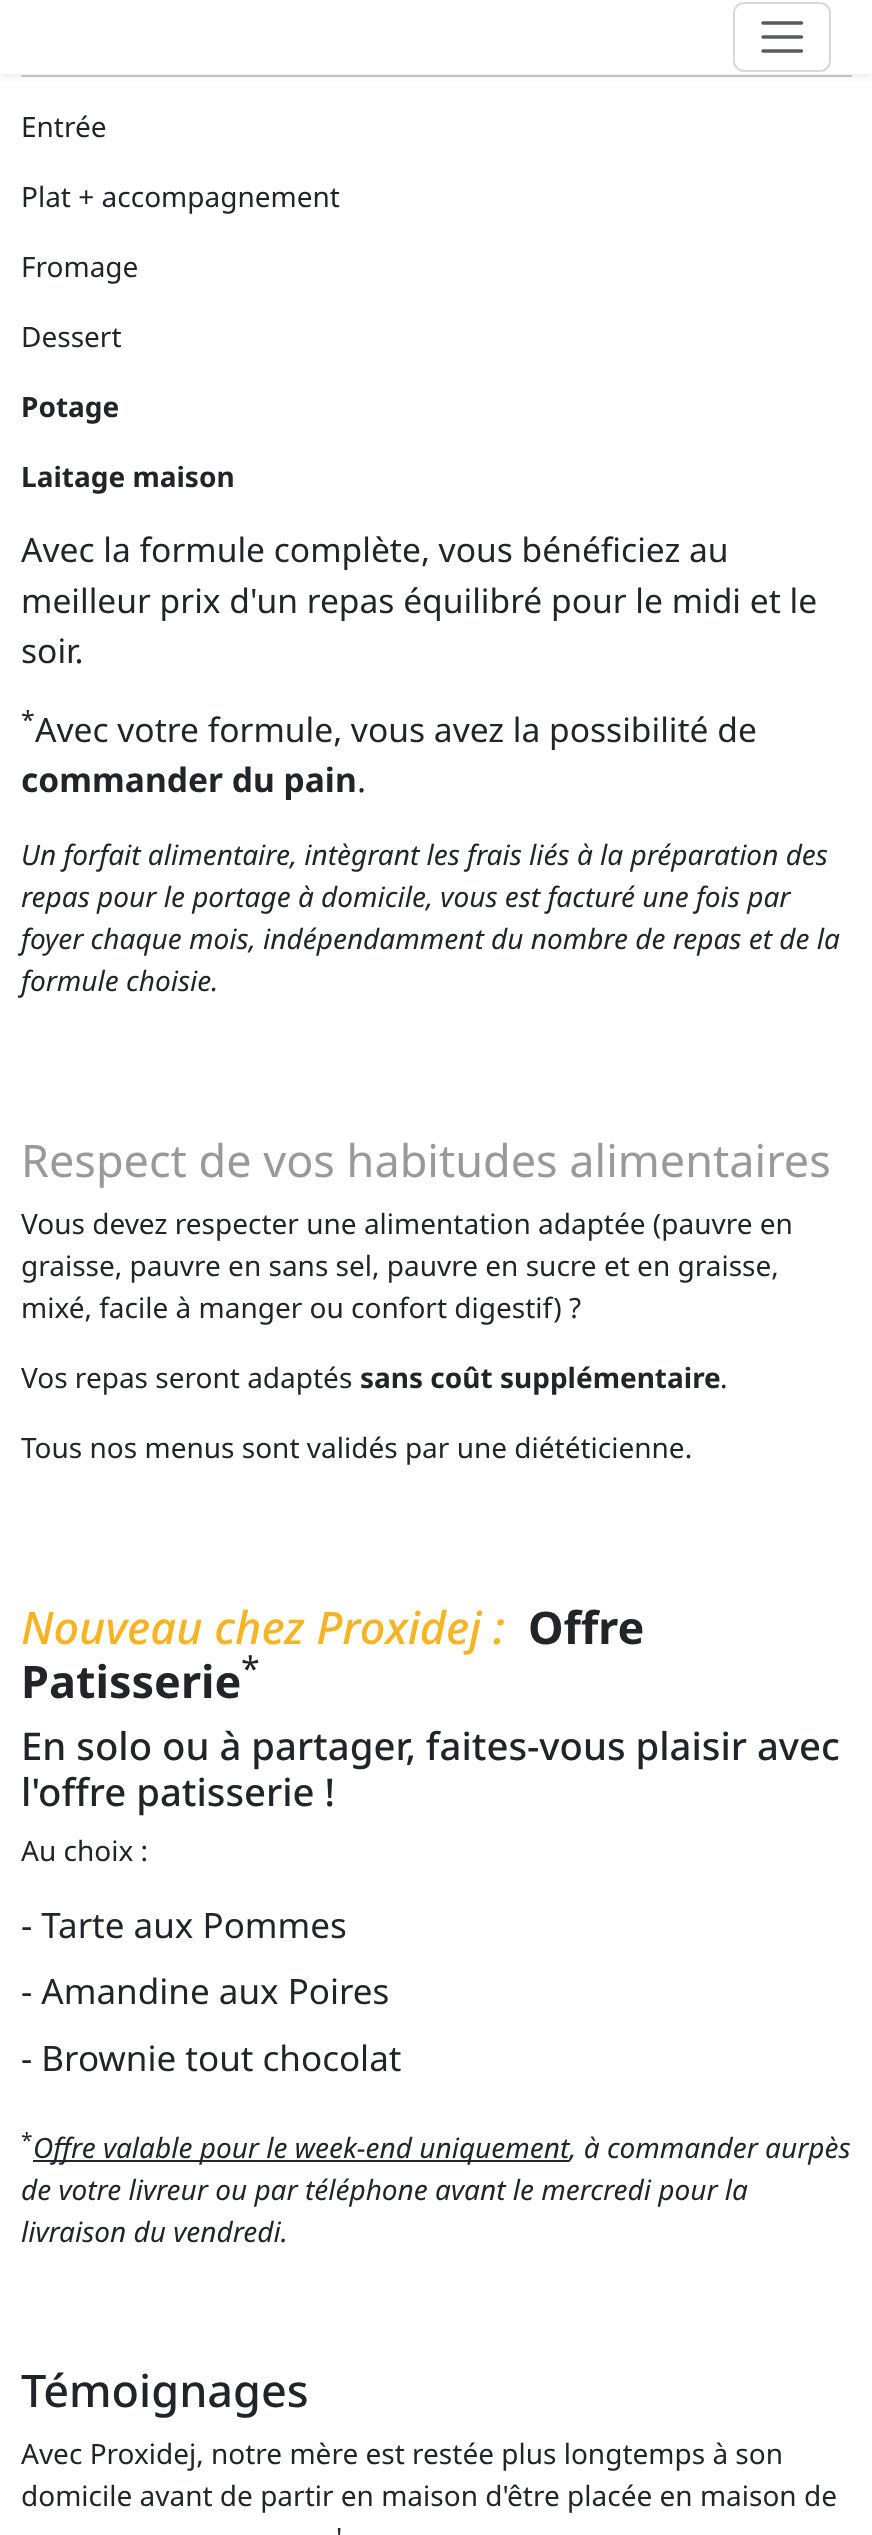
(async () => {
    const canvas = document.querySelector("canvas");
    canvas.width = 872;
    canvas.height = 2535;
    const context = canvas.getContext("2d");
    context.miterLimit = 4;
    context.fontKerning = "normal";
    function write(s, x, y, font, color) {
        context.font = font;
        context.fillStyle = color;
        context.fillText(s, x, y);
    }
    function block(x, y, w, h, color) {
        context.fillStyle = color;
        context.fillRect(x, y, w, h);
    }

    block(0, 0, 872, 2535, "rgb(255, 255, 255)");
    block(21, 75, 831, 2, "rgb(200, 201, 202)");
    context.fillStyle = "rgba(0, 0, 0, 0.07)";
    context.filter = "blur(3.5px)";
    context.beginPath();
    context.rect(0, 4, 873, 73);
    context.fill();
    context.filter = "none";
    block(0, 0, 872, 74, "rgb(255, 255, 255)");
    context.beginPath();
    context.roundRect(734, 3, 96, 68, 10);
    context.strokeStyle = "rgb(217, 217, 217)";
    context.lineWidth = 2;
    context.stroke();
    context.beginPath();
    context.moveTo(763, 23);
    context.lineTo(801.5, 23);
    context.moveTo(763, 37);
    context.lineTo(801.5, 37);
    context.moveTo(763, 51);
    context.lineTo(801.5, 51);
    context.strokeStyle = "rgb(89, 92, 95)";
    context.lineWidth = 3.5;
    context.lineCap = "round";
    context.stroke();
    write("Entrée", 21, 137, "28px Noto Sans", "rgb(33, 37, 41)");
    write("Plat + accompagnement", 21, 207, "28px Noto Sans", "rgb(33, 37, 41)");
    write("Fromage", 21, 277, "28px Noto Sans", "rgb(33, 37, 41)");
    write("Dessert", 21, 347, "28px Noto Sans", "rgb(33, 37, 41)");
    write("Potage", 21, 417, "bold 28px Noto Sans", "rgb(33, 37, 41)");
    write("Laitage maison", 21, 487, "bold 28px Noto Sans", "rgb(33, 37, 41)");
    write("Avec la formule complète, vous bénéficiez au", 21, 562, "33.6px Noto Sans", "rgb(33, 37, 41)");
    write("meilleur prix d'un repas équilibré pour le midi et le", 21, 613, "33.6px Noto Sans", "rgb(33, 37, 41)");
    write("soir.", 21, 663, "33.6px Noto Sans", "rgb(33, 37, 41)");
    write("*", 21, 729, "25px Noto Sans", "rgb(33, 37, 41)");
    write("Avec votre formule, vous avez la possibilité de", 35, 742, "33.6px Noto Sans", "rgb(33, 37, 41)");
    write("commander du pain", 21, 792, "bold 33.6px Noto Sans", "rgb(33, 37, 41)");
    write(".", 357, 792, "33.6px Noto Sans", "rgb(33, 37, 41)");
    write("Un forfait alimentaire, intègrant les frais liés à la préparation des", 21, 865, "italic 28px Noto Sans", "rgb(33, 37, 41)");
    write("repas pour le portage à domicile, vous est facturé une fois par", 21, 907, "italic 28px Noto Sans", "rgb(33, 37, 41)");
    write("foyer chaque mois, indépendamment du nombre de repas et de la", 21, 949, "italic 28px Noto Sans", "rgb(33, 37, 41)");
    write("formule choisie.", 21, 991, "italic 28px Noto Sans", "rgb(33, 37, 41)");
    write("Respect de vos habitudes alimentaires", 21, 1177, "45px Noto Sans", "rgb(153, 153, 153)");
    write("Vous devez respecter une alimentation adaptée (pauvre en", 21, 1234, "28px Noto Sans", "rgb(33, 37, 41)");
    write("graisse, pauvre en sans sel, pauvre en sucre et en graisse,", 21, 1276, "28px Noto Sans", "rgb(33, 37, 41)");
    write("mixé, facile à manger ou confort digestif) ?", 21, 1318, "28px Noto Sans", "rgb(33, 37, 41)");
    write("Vos repas seront adaptés", 21, 1388, "28px Noto Sans", "rgb(33, 37, 41)");
    write("sans coût supplémentaire", 360, 1388, "bold 28px Noto Sans", "rgb(33, 37, 41)");
    write(".", 720, 1388, "28px Noto Sans", "rgb(33, 37, 41)");
    write("Tous nos menus sont validés par une diététicienne.", 21, 1458, "28px Noto Sans", "rgb(33, 37, 41)");
    write("Nouveau chez Proxidej :", 21, 1644, "italic 500 45px Noto Sans", "rgb(248, 179, 35)");
    write("Offre", 528, 1644, "bold 45px Noto Sans", "rgb(33, 37, 41)");
    write("Patisserie", 21, 1698, "bold 45px Noto Sans", "rgb(33, 37, 41)");
    write("*", 241, 1681, "34px Noto Sans", "rgb(33, 37, 41)");
    write("En solo ou à partager, faites-vous plaisir avec", 21, 1760, "500 38.3px Noto Sans", "rgb(33, 37, 41)");
    write("l'offre patisserie !", 21, 1806, "500 38.3px Noto Sans", "rgb(33, 37, 41)");
    write("Au choix :", 21, 1861, "28px Noto Sans", "rgb(33, 37, 41)");
    write("- Tarte aux Pommes", 21, 1938, "35px Noto Sans", "rgb(33, 37, 41)");
    write("- Amandine aux Poires", 21, 2004, "35px Noto Sans", "rgb(33, 37, 41)");
    write("- Brownie tout chocolat", 21, 2071, "35px Noto Sans", "rgb(33, 37, 41)");
    write("*", 21, 2148, "21px Noto Sans", "rgb(33, 37, 41)");
    block(33, 2160, 536, 2, "rgb(33, 37, 41)");
    write("Offre valable pour le week-end uniquement, à commander aurpès", 33, 2158, "italic 28px Noto Sans", "rgb(33, 37, 41)");
    write("de votre livreur ou par téléphone avant le mercredi pour la", 21, 2200, "italic 28px Noto Sans", "rgb(33, 37, 41)");
    write("livraison du vendredi.", 21, 2242, "italic 28px Noto Sans", "rgb(33, 37, 41)");
    write("Témoignages", 21, 2407, "500 45px Noto Sans", "rgb(33, 37, 41)");
    write("Avec Proxidej, notre mère est restée plus longtemps à son", 21, 2464, "28px Noto Sans", "rgb(33, 37, 41)");
    write("domicile avant de partir en maison d'être placée en maison de", 21, 2506, "28px Noto Sans", "rgb(33, 37, 41)");
    write("'", 336, 2548, "28px Noto Sans", "rgb(33, 37, 41)");
})();
